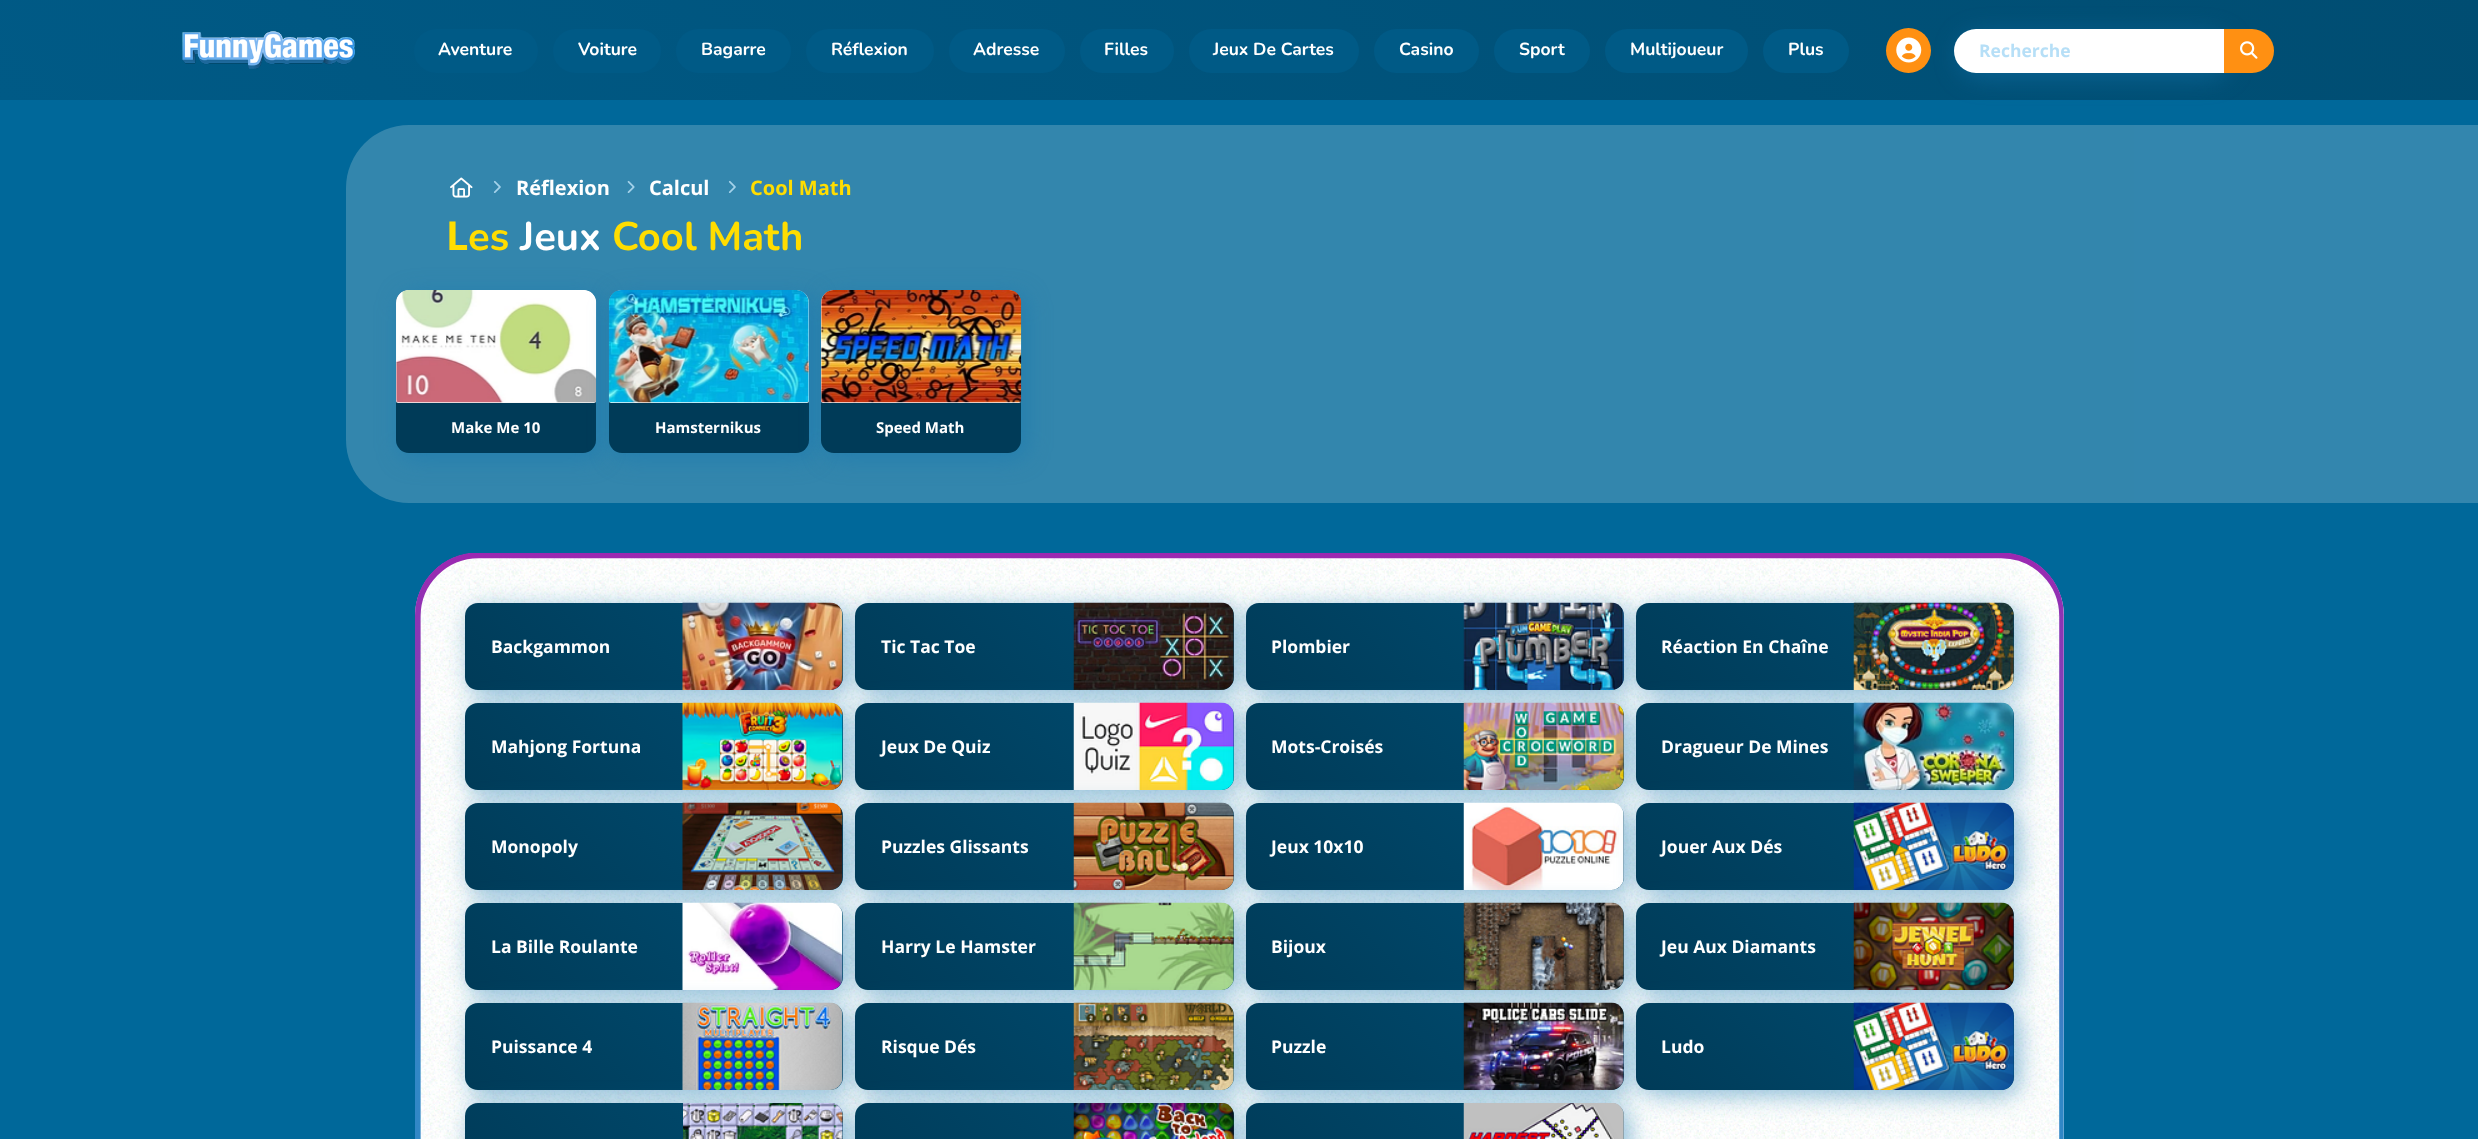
(async () => {
    const canvas = document.querySelector("canvas");
    canvas.width = 2478;
    canvas.height = 1139;
    const context = canvas.getContext("2d");
    context.miterLimit = 4;
    context.fontKerning = "normal";
    function write(s, x, y, font, color) {
        context.font = font;
        context.fillStyle = color;
        context.fillText(s, x, y);
    }
    function block(x, y, w, h, color) {
        context.fillStyle = color;
        context.fillRect(x, y, w, h);
    }
    function card(x, y, w, h, r, color) {
        context.fillStyle = color;
        context.beginPath();
        context.roundRect(x, y, w, h, r);
        context.fill();
    }
    async function photo(src, x, y, w, h) {
        const img = new Image();
        img.src = src;
        await img.decode();
        context.drawImage(img, x, y, w, h);
    }
    let gradient;

    block(0, 0, 2478, 1139, "rgb(0, 104, 154)");
    gradient = context.createLinearGradient(595, 695, 1884, -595);
    gradient.addColorStop(0, "rgb(0, 90, 134)");
    gradient.addColorStop(1, "rgb(0, 77, 114)");
    context.fillStyle = gradient;
    context.fillRect(0, 0, 2478, 100);
    await photo("media/1.png", 182, 31, 173, 38);
    card(414, 29, 124, 44, 22, "rgb(0, 90, 134)");
    write("Aventure", 438, 55, "bold 17.5px Nunito", "rgb(255, 255, 255)");
    card(553, 29, 108, 44, 22, "rgb(0, 90, 134)");
    write("Voiture", 578, 55, "bold 17.5px Nunito", "rgb(255, 255, 255)");
    card(676, 29, 115, 44, 22, "rgb(0, 90, 134)");
    write("Bagarre", 701, 55, "bold 17.5px Nunito", "rgb(255, 255, 255)");
    card(806, 29, 128, 44, 22, "rgb(0, 90, 134)");
    write("Réflexion", 831, 55, "bold 17.5px Nunito", "rgb(255, 255, 255)");
    card(949, 29, 116, 44, 22, "rgb(0, 90, 134)");
    write("Adresse", 973, 55, "bold 17.5px Nunito", "rgb(255, 255, 255)");
    card(1080, 29, 94, 44, 22, "rgb(0, 90, 134)");
    write("Filles", 1104, 55, "bold 17.5px Nunito", "rgb(255, 255, 255)");
    card(1189, 29, 170, 44, 22, "rgb(0, 90, 134)");
    write("Jeux De Cartes", 1213, 55, "bold 17.5px Nunito", "rgb(255, 255, 255)");
    card(1374, 29, 105, 44, 22, "rgb(0, 90, 134)");
    write("Casino", 1399, 55, "bold 17.5px Nunito", "rgb(255, 255, 255)");
    card(1494, 29, 96, 44, 22, "rgb(0, 90, 134)");
    write("Sport", 1519, 55, "bold 17.5px Nunito", "rgb(255, 255, 255)");
    card(1605, 29, 143, 44, 22, "rgb(0, 90, 134)");
    write("Multijoueur", 1630, 55, "bold 17.5px Nunito", "rgb(255, 255, 255)");
    card(1763, 29, 86, 44, 22, "rgb(0, 90, 134)");
    write("Plus", 1788, 55, "bold 17.5px Nunito", "rgb(255, 255, 255)");
    context.fillStyle = "rgba(18, 118, 175, 0.5)";
    context.filter = "blur(12.5px)";
    context.beginPath();
    context.roundRect(1959, 34, 271, 44, 22);
    context.fill();
    context.filter = "none";
    context.fillStyle = "rgb(255, 144, 18)";
    context.beginPath();
    context.arc(1908.5, 50.5, 22.5, 0, Math.PI * 2);
    context.fill();
    await photo("media/2.png", 1896, 37, 26, 26);
    context.fillStyle = "rgb(255, 255, 255)";
    context.beginPath();
    context.roundRect(1954, 29, 271, 44, [22, 0, 0, 22]);
    context.fill();
    write("Recherche", 1979, 57, "bold 17.5px Open Sans", "rgb(182, 223, 247)");
    context.fillStyle = "rgb(255, 144, 18)";
    context.beginPath();
    context.roundRect(2224, 29, 50, 44, [0, 22, 22, 0]);
    context.fill();
    await photo("media/3.png", 2240, 41, 18, 18);
    context.fillStyle = "rgb(51, 134, 173)";
    context.beginPath();
    context.roundRect(346, 125, 1788, 378, [63, 0, 0, 63]);
    context.fill();
    await photo("media/4.png", 450, 177, 23, 21);
    await photo("media/5.png", 493, 180, 8, 13);
    write("Réflexion", 516, 195, "bold 20px Open Sans", "rgb(255, 255, 255)");
    await photo("media/6.png", 627, 180, 8, 13);
    write("Calcul", 649, 195, "bold 20px Open Sans", "rgb(255, 255, 255)");
    await photo("media/5.png", 728, 180, 8, 13);
    write("Cool Math", 750, 195, "bold 20px Open Sans", "rgb(255, 221, 0)");
    block(2134, 125, 344, 378, "rgb(51, 134, 174)");
    write("L", 446, 250, "bold 40px Noto Sans", "rgb(255, 221, 0)");
    write("es", 468, 250, "bold 40px Nunito", "rgb(255, 221, 0)");
    write("Jeux", 520, 250, "bold 40px Nunito", "rgb(255, 255, 255)");
    write("Cool Math", 612, 250, "bold 40px Nunito", "rgb(255, 221, 0)");
    context.fillStyle = "rgba(18, 118, 175, 0.5)";
    context.filter = "blur(12.5px)";
    context.beginPath();
    context.roundRect(401, 295, 200, 163, 13);
    context.fill();
    context.filter = "none";
    card(396, 290, 200, 163, 13, "rgb(0, 59, 88)");
    context.fillStyle = "rgb(250, 250, 250)";
    context.beginPath();
    context.roundRect(396, 290, 200, 113, [13, 13, 2.5, 2.5]);
    context.fill();
    await photo("media/7.png", 396, 290, 201, 113);
    write("Make Me 10", 451, 433, "bold 15px Open Sans", "rgb(255, 255, 255)");
    context.fillStyle = "rgba(18, 118, 175, 0.5)";
    context.filter = "blur(12.5px)";
    context.beginPath();
    context.roundRect(614, 295, 200, 163, 13);
    context.fill();
    context.filter = "none";
    card(609, 290, 200, 163, 13, "rgb(0, 59, 88)");
    context.fillStyle = "rgb(250, 250, 250)";
    context.beginPath();
    context.roundRect(609, 290, 200, 113, [13, 13, 2.5, 2.5]);
    context.fill();
    await photo("media/8.png", 608, 290, 201, 113);
    write("Hamsternikus", 655, 433, "bold 15px Open Sans", "rgb(255, 255, 255)");
    context.fillStyle = "rgba(18, 118, 175, 0.5)";
    context.filter = "blur(12.5px)";
    context.beginPath();
    context.roundRect(826, 295, 200, 163, 13);
    context.fill();
    context.filter = "none";
    card(821, 290, 200, 163, 13, "rgb(0, 59, 88)");
    context.fillStyle = "rgb(250, 250, 250)";
    context.beginPath();
    context.roundRect(821, 290, 200, 113, [13, 13, 2.5, 2.5]);
    context.fill();
    await photo("media/9.png", 821, 290, 201, 113);
    write("Speed Math", 876, 433, "bold 15px Open Sans", "rgb(255, 255, 255)");
    card(415, 553, 1649, 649, 63, "rgb(255, 255, 255)");
    await photo("media/10.png", 415, 553, 1649, 586);
    context.fillStyle = "rgba(18, 118, 175, 0.5)";
    context.filter = "blur(12.5px)";
    context.beginPath();
    context.roundRect(470, 608, 378, 87, 13);
    context.fill();
    context.filter = "none";
    gradient = context.createLinearGradient(538, 763, 770, 530);
    gradient.addColorStop(0, "rgb(0, 59, 88)");
    gradient.addColorStop(1, "rgb(0, 77, 114)");
    context.fillStyle = gradient;
    context.beginPath();
    context.roundRect(465, 603, 378, 87, 13);
    context.fill();
    write("Backgammon", 491, 653, "bold 17.5px Open Sans", "rgb(255, 255, 255)");
    await photo("media/11.png", 682, 602, 161, 88);
    context.fillStyle = "rgba(18, 118, 175, 0.5)";
    context.filter = "blur(12.5px)";
    context.beginPath();
    context.roundRect(860, 608, 379, 87, 13);
    context.fill();
    context.filter = "none";
    gradient = context.createLinearGradient(928, 763, 1161, 530);
    gradient.addColorStop(0, "rgb(0, 59, 88)");
    gradient.addColorStop(1, "rgb(0, 77, 114)");
    context.fillStyle = gradient;
    context.beginPath();
    context.roundRect(855, 603, 379, 87, 13);
    context.fill();
    write("Tic Tac Toe", 881, 653, "bold 17.5px Open Sans", "rgb(255, 255, 255)");
    await photo("media/12.png", 1073, 602, 161, 88);
    context.fillStyle = "rgba(18, 118, 175, 0.5)";
    context.filter = "blur(12.5px)";
    context.beginPath();
    context.roundRect(1251, 608, 378, 87, 13);
    context.fill();
    context.filter = "none";
    gradient = context.createLinearGradient(1319, 763, 1551, 530);
    gradient.addColorStop(0, "rgb(0, 59, 88)");
    gradient.addColorStop(1, "rgb(0, 77, 114)");
    context.fillStyle = gradient;
    context.beginPath();
    context.roundRect(1246, 603, 378, 87, 13);
    context.fill();
    write("Plombier", 1271, 653, "bold 17.5px Open Sans", "rgb(255, 255, 255)");
    await photo("media/13.png", 1463, 602, 161, 88);
    context.fillStyle = "rgba(18, 118, 175, 0.5)";
    context.filter = "blur(12.5px)";
    context.beginPath();
    context.roundRect(1641, 608, 378, 87, 13);
    context.fill();
    context.filter = "none";
    gradient = context.createLinearGradient(1709, 763, 1941, 530);
    gradient.addColorStop(0, "rgb(0, 59, 88)");
    gradient.addColorStop(1, "rgb(0, 77, 114)");
    context.fillStyle = gradient;
    context.beginPath();
    context.roundRect(1636, 603, 378, 87, 13);
    context.fill();
    write("Réaction En Chaîne", 1661, 653, "bold 17.5px Open Sans", "rgb(255, 255, 255)");
    await photo("media/14.png", 1853, 602, 161, 88);
    context.fillStyle = "rgba(18, 118, 175, 0.5)";
    context.filter = "blur(12.5px)";
    context.beginPath();
    context.roundRect(470, 708, 378, 87, 13);
    context.fill();
    context.filter = "none";
    gradient = context.createLinearGradient(538, 863, 770, 630);
    gradient.addColorStop(0, "rgb(0, 59, 88)");
    gradient.addColorStop(1, "rgb(0, 77, 114)");
    context.fillStyle = gradient;
    context.beginPath();
    context.roundRect(465, 703, 378, 87, 13);
    context.fill();
    write("Mahjong Fortuna", 491, 753, "bold 17.5px Open Sans", "rgb(255, 255, 255)");
    await photo("media/15.png", 682, 702, 161, 88);
    context.fillStyle = "rgba(18, 118, 175, 0.5)";
    context.filter = "blur(12.5px)";
    context.beginPath();
    context.roundRect(860, 708, 379, 87, 13);
    context.fill();
    context.filter = "none";
    gradient = context.createLinearGradient(928, 863, 1161, 630);
    gradient.addColorStop(0, "rgb(0, 59, 88)");
    gradient.addColorStop(1, "rgb(0, 77, 114)");
    context.fillStyle = gradient;
    context.beginPath();
    context.roundRect(855, 703, 379, 87, 13);
    context.fill();
    write("Jeux De Quiz", 881, 753, "bold 17.5px Open Sans", "rgb(255, 255, 255)");
    await photo("media/16.png", 1073, 702, 161, 88);
    context.fillStyle = "rgba(18, 118, 175, 0.5)";
    context.filter = "blur(12.5px)";
    context.beginPath();
    context.roundRect(1251, 708, 378, 87, 13);
    context.fill();
    context.filter = "none";
    gradient = context.createLinearGradient(1319, 863, 1551, 630);
    gradient.addColorStop(0, "rgb(0, 59, 88)");
    gradient.addColorStop(1, "rgb(0, 77, 114)");
    context.fillStyle = gradient;
    context.beginPath();
    context.roundRect(1246, 703, 378, 87, 13);
    context.fill();
    write("Mots-Croisés", 1271, 753, "bold 17.5px Open Sans", "rgb(255, 255, 255)");
    await photo("media/17.png", 1463, 702, 161, 88);
    context.fillStyle = "rgba(18, 118, 175, 0.5)";
    context.filter = "blur(12.5px)";
    context.beginPath();
    context.roundRect(1641, 708, 378, 87, 13);
    context.fill();
    context.filter = "none";
    gradient = context.createLinearGradient(1709, 863, 1941, 630);
    gradient.addColorStop(0, "rgb(0, 59, 88)");
    gradient.addColorStop(1, "rgb(0, 77, 114)");
    context.fillStyle = gradient;
    context.beginPath();
    context.roundRect(1636, 703, 378, 87, 13);
    context.fill();
    write("Dragueur De Mines", 1661, 753, "bold 17.5px Open Sans", "rgb(255, 255, 255)");
    await photo("media/18.png", 1853, 702, 161, 88);
    context.fillStyle = "rgba(18, 118, 175, 0.5)";
    context.filter = "blur(12.5px)";
    context.beginPath();
    context.roundRect(470, 808, 378, 87, 13);
    context.fill();
    context.filter = "none";
    gradient = context.createLinearGradient(538, 963, 770, 730);
    gradient.addColorStop(0, "rgb(0, 59, 88)");
    gradient.addColorStop(1, "rgb(0, 77, 114)");
    context.fillStyle = gradient;
    context.beginPath();
    context.roundRect(465, 803, 378, 87, 13);
    context.fill();
    write("Monopoly", 491, 853, "bold 17.5px Open Sans", "rgb(255, 255, 255)");
    await photo("media/19.png", 682, 802, 161, 88);
    context.fillStyle = "rgba(18, 118, 175, 0.5)";
    context.filter = "blur(12.5px)";
    context.beginPath();
    context.roundRect(860, 808, 379, 87, 13);
    context.fill();
    context.filter = "none";
    gradient = context.createLinearGradient(928, 963, 1161, 730);
    gradient.addColorStop(0, "rgb(0, 59, 88)");
    gradient.addColorStop(1, "rgb(0, 77, 114)");
    context.fillStyle = gradient;
    context.beginPath();
    context.roundRect(855, 803, 379, 87, 13);
    context.fill();
    write("Puzzles Glissants", 881, 853, "bold 17.5px Open Sans", "rgb(255, 255, 255)");
    await photo("media/20.png", 1073, 802, 161, 88);
    context.fillStyle = "rgba(18, 118, 175, 0.5)";
    context.filter = "blur(12.5px)";
    context.beginPath();
    context.roundRect(1251, 808, 378, 87, 13);
    context.fill();
    context.filter = "none";
    gradient = context.createLinearGradient(1319, 963, 1551, 730);
    gradient.addColorStop(0, "rgb(0, 59, 88)");
    gradient.addColorStop(1, "rgb(0, 77, 114)");
    context.fillStyle = gradient;
    context.beginPath();
    context.roundRect(1246, 803, 378, 87, 13);
    context.fill();
    write("Jeux 10x10", 1271, 853, "bold 17.5px Open Sans", "rgb(255, 255, 255)");
    await photo("media/21.png", 1463, 802, 161, 88);
    context.fillStyle = "rgba(18, 118, 175, 0.5)";
    context.filter = "blur(12.5px)";
    context.beginPath();
    context.roundRect(1641, 808, 378, 87, 13);
    context.fill();
    context.filter = "none";
    gradient = context.createLinearGradient(1709, 963, 1941, 730);
    gradient.addColorStop(0, "rgb(0, 59, 88)");
    gradient.addColorStop(1, "rgb(0, 77, 114)");
    context.fillStyle = gradient;
    context.beginPath();
    context.roundRect(1636, 803, 378, 87, 13);
    context.fill();
    write("Jouer Aux Dés", 1661, 853, "bold 17.5px Open Sans", "rgb(255, 255, 255)");
    await photo("media/22.png", 1853, 802, 161, 88);
    context.fillStyle = "rgba(18, 118, 175, 0.5)";
    context.filter = "blur(12.5px)";
    context.beginPath();
    context.roundRect(470, 908, 378, 87, 13);
    context.fill();
    context.filter = "none";
    gradient = context.createLinearGradient(538, 1063, 770, 830);
    gradient.addColorStop(0, "rgb(0, 59, 88)");
    gradient.addColorStop(1, "rgb(0, 77, 114)");
    context.fillStyle = gradient;
    context.beginPath();
    context.roundRect(465, 903, 378, 87, 13);
    context.fill();
    write("La Bille Roulante", 491, 953, "bold 17.5px Open Sans", "rgb(255, 255, 255)");
    await photo("media/23.png", 682, 902, 161, 88);
    context.fillStyle = "rgba(18, 118, 175, 0.5)";
    context.filter = "blur(12.5px)";
    context.beginPath();
    context.roundRect(860, 908, 379, 87, 13);
    context.fill();
    context.filter = "none";
    gradient = context.createLinearGradient(928, 1063, 1161, 830);
    gradient.addColorStop(0, "rgb(0, 59, 88)");
    gradient.addColorStop(1, "rgb(0, 77, 114)");
    context.fillStyle = gradient;
    context.beginPath();
    context.roundRect(855, 903, 379, 87, 13);
    context.fill();
    write("Harry Le Hamster", 881, 953, "bold 17.5px Open Sans", "rgb(255, 255, 255)");
    await photo("media/24.png", 1073, 902, 161, 88);
    context.fillStyle = "rgba(18, 118, 175, 0.5)";
    context.filter = "blur(12.5px)";
    context.beginPath();
    context.roundRect(1251, 908, 378, 87, 13);
    context.fill();
    context.filter = "none";
    gradient = context.createLinearGradient(1319, 1063, 1551, 830);
    gradient.addColorStop(0, "rgb(0, 59, 88)");
    gradient.addColorStop(1, "rgb(0, 77, 114)");
    context.fillStyle = gradient;
    context.beginPath();
    context.roundRect(1246, 903, 378, 87, 13);
    context.fill();
    write("Bijoux", 1271, 953, "bold 17.5px Open Sans", "rgb(255, 255, 255)");
    await photo("media/25.png", 1463, 902, 161, 88);
    context.fillStyle = "rgba(18, 118, 175, 0.5)";
    context.filter = "blur(12.5px)";
    context.beginPath();
    context.roundRect(1641, 908, 378, 87, 13);
    context.fill();
    context.filter = "none";
    gradient = context.createLinearGradient(1709, 1063, 1941, 830);
    gradient.addColorStop(0, "rgb(0, 59, 88)");
    gradient.addColorStop(1, "rgb(0, 77, 114)");
    context.fillStyle = gradient;
    context.beginPath();
    context.roundRect(1636, 903, 378, 87, 13);
    context.fill();
    write("Jeu Aux Diamants", 1661, 953, "bold 17.5px Open Sans", "rgb(255, 255, 255)");
    await photo("media/26.png", 1853, 902, 161, 88);
    context.fillStyle = "rgba(18, 118, 175, 0.5)";
    context.filter = "blur(12.5px)";
    context.beginPath();
    context.roundRect(470, 1008, 378, 87, 13);
    context.fill();
    context.filter = "none";
    gradient = context.createLinearGradient(538, 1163, 770, 930);
    gradient.addColorStop(0, "rgb(0, 59, 88)");
    gradient.addColorStop(1, "rgb(0, 77, 114)");
    context.fillStyle = gradient;
    context.beginPath();
    context.roundRect(465, 1003, 378, 87, 13);
    context.fill();
    write("Puissance 4", 491, 1053, "bold 17.5px Open Sans", "rgb(255, 255, 255)");
    await photo("media/27.png", 682, 1002, 161, 88);
    context.fillStyle = "rgba(18, 118, 175, 0.5)";
    context.filter = "blur(12.5px)";
    context.beginPath();
    context.roundRect(860, 1008, 379, 87, 13);
    context.fill();
    context.filter = "none";
    gradient = context.createLinearGradient(928, 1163, 1161, 930);
    gradient.addColorStop(0, "rgb(0, 59, 88)");
    gradient.addColorStop(1, "rgb(0, 77, 114)");
    context.fillStyle = gradient;
    context.beginPath();
    context.roundRect(855, 1003, 379, 87, 13);
    context.fill();
    write("Risque Dés", 881, 1053, "bold 17.5px Open Sans", "rgb(255, 255, 255)");
    await photo("media/28.png", 1073, 1002, 161, 88);
    context.fillStyle = "rgba(18, 118, 175, 0.5)";
    context.filter = "blur(12.5px)";
    context.beginPath();
    context.roundRect(1251, 1008, 378, 87, 13);
    context.fill();
    context.filter = "none";
    gradient = context.createLinearGradient(1319, 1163, 1551, 930);
    gradient.addColorStop(0, "rgb(0, 59, 88)");
    gradient.addColorStop(1, "rgb(0, 77, 114)");
    context.fillStyle = gradient;
    context.beginPath();
    context.roundRect(1246, 1003, 378, 87, 13);
    context.fill();
    write("Puzzle", 1271, 1053, "bold 17.5px Open Sans", "rgb(255, 255, 255)");
    await photo("media/29.png", 1463, 1002, 161, 88);
    context.fillStyle = "rgba(18, 118, 175, 0.5)";
    context.filter = "blur(12.5px)";
    context.beginPath();
    context.roundRect(1641, 1008, 378, 87, 13);
    context.fill();
    context.filter = "none";
    gradient = context.createLinearGradient(1709, 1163, 1941, 930);
    gradient.addColorStop(0, "rgb(0, 59, 88)");
    gradient.addColorStop(1, "rgb(0, 77, 114)");
    context.fillStyle = gradient;
    context.beginPath();
    context.roundRect(1636, 1003, 378, 87, 13);
    context.fill();
    write("Ludo", 1661, 1053, "bold 17.5px Open Sans", "rgb(255, 255, 255)");
    await photo("media/30.png", 1853, 1002, 161, 88);
    context.fillStyle = "rgba(18, 118, 175, 0.5)";
    context.filter = "blur(12.5px)";
    context.beginPath();
    context.roundRect(470, 1108, 378, 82, 13);
    context.fill();
    context.filter = "none";
    gradient = context.createLinearGradient(538, 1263, 770, 1030);
    gradient.addColorStop(0, "rgb(0, 59, 88)");
    gradient.addColorStop(1, "rgb(0, 77, 114)");
    context.fillStyle = gradient;
    context.beginPath();
    context.roundRect(465, 1103, 378, 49, 13);
    context.fill();
    await photo("media/31.png", 683, 1103, 160, 36);
    context.fillStyle = "rgba(18, 118, 175, 0.5)";
    context.filter = "blur(12.5px)";
    context.beginPath();
    context.roundRect(860, 1108, 379, 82, 13);
    context.fill();
    context.filter = "none";
    gradient = context.createLinearGradient(928, 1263, 1161, 1030);
    gradient.addColorStop(0, "rgb(0, 59, 88)");
    gradient.addColorStop(1, "rgb(0, 77, 114)");
    context.fillStyle = gradient;
    context.beginPath();
    context.roundRect(855, 1103, 379, 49, 13);
    context.fill();
    await photo("media/32.png", 1073, 1103, 161, 36);
    context.fillStyle = "rgba(18, 118, 175, 0.5)";
    context.filter = "blur(12.5px)";
    context.beginPath();
    context.roundRect(1251, 1108, 378, 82, 13);
    context.fill();
    context.filter = "none";
    gradient = context.createLinearGradient(1319, 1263, 1551, 1030);
    gradient.addColorStop(0, "rgb(0, 59, 88)");
    gradient.addColorStop(1, "rgb(0, 77, 114)");
    context.fillStyle = gradient;
    context.beginPath();
    context.roundRect(1246, 1103, 378, 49, 13);
    context.fill();
    await photo("media/33.png", 1463, 1103, 161, 36);
})();
